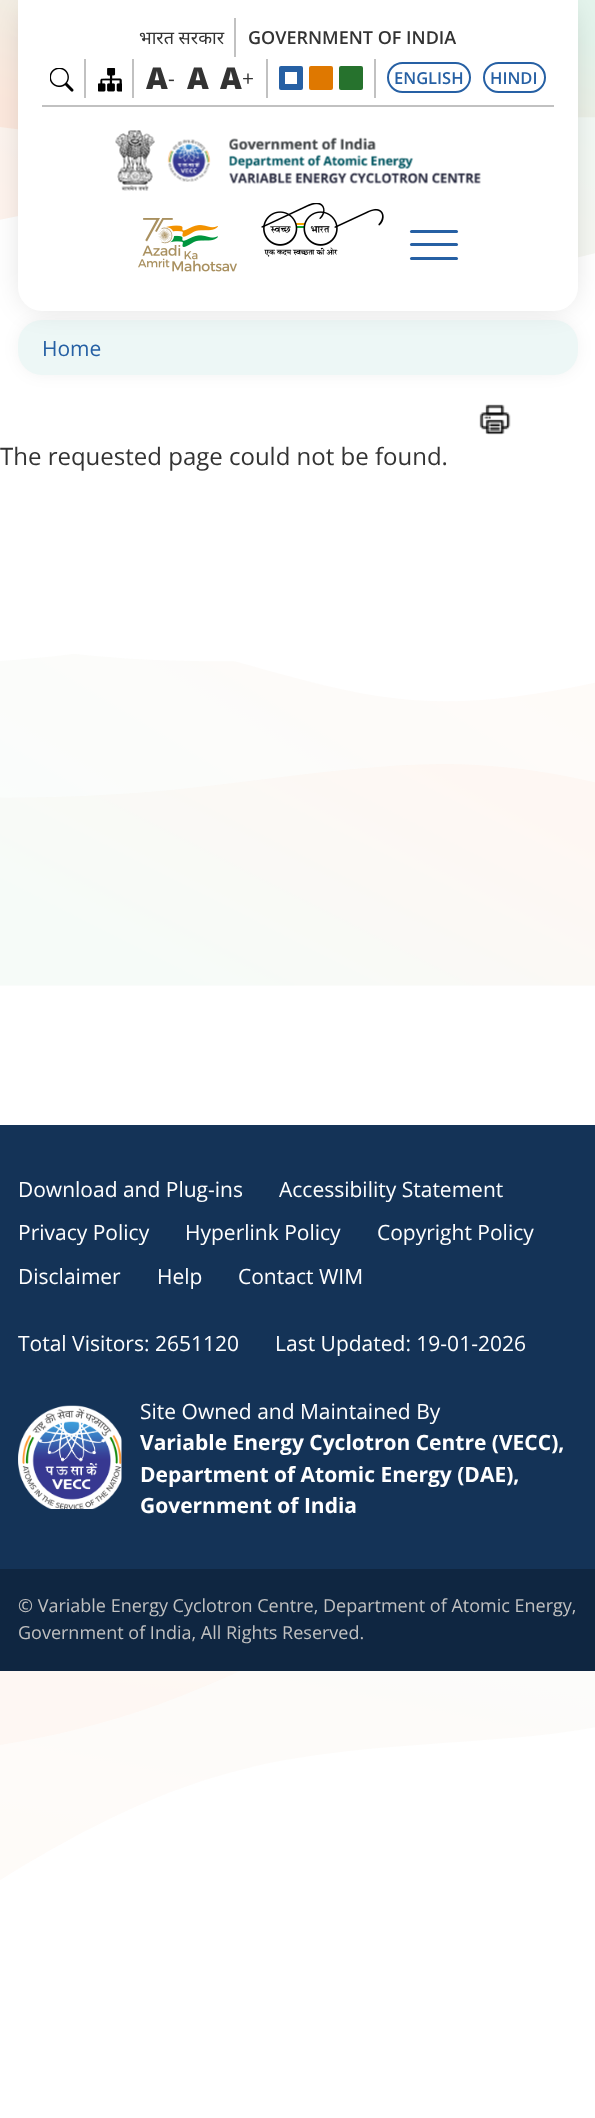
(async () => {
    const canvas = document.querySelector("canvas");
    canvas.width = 595;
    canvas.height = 2118;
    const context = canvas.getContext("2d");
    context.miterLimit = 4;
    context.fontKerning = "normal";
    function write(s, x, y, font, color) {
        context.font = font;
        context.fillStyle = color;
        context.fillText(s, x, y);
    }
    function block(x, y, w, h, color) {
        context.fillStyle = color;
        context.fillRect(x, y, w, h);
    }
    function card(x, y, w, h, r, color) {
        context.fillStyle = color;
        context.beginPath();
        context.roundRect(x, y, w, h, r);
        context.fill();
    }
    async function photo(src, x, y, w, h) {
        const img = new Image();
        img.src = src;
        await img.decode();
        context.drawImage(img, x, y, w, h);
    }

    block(0, 0, 595, 2118, "rgb(255, 255, 255)");
    await photo("media/1.png", 0, 0, 595, 1880);
    context.fillStyle = "rgba(0, 0, 0, 0.07)";
    context.filter = "blur(9px)";
    context.beginPath();
    context.roundRect(21, 323, 554, 49, 21);
    context.fill();
    context.filter = "none";
    card(18, 320, 560, 55, 24, "rgb(237, 247, 246)");
    context.fillStyle = "rgba(0, 0, 0, 0.15)";
    context.filter = "blur(15px)";
    context.beginPath();
    context.roundRect(24, 6, 548, 299, 18);
    context.fill();
    context.filter = "none";
    context.fillStyle = "rgb(255, 255, 255)";
    context.beginPath();
    context.roundRect(18, 0, 560, 311, [0, 0, 24, 24]);
    context.fill();
    block(42, 105, 512, 2, "rgb(193, 193, 193)");
    write("भारत सरकार", 139, 44, "18px Noto Sans", "rgb(51, 51, 51)");
    block(234, 18, 2, 39, "rgb(193, 193, 193)");
    write("GOVERNMENT OF INDIA", 248, 44, "600 18px Open Sans", "rgb(51, 51, 51)");
    await photo("media/2.png", 50, 68, 24, 24);
    block(84, 59, 2, 39, "rgb(193, 193, 193)");
    await photo("media/3.png", 98, 68, 24, 24);
    block(132, 59, 2, 39, "rgb(193, 193, 193)");
    write("A", 146, 89, "800 30px Open Sans", "rgb(51, 51, 51)");
    write("-", 168, 86, "21px Open Sans", "rgb(51, 51, 51)");
    write("A", 187, 89, "800 30px Open Sans", "rgb(51, 51, 51)");
    write("A", 220, 89, "800 30px Open Sans", "rgb(51, 51, 51)");
    write("+", 242, 86, "21px Open Sans", "rgb(51, 51, 51)");
    block(266, 59, 2, 39, "rgb(193, 193, 193)");
    card(279, 66, 24, 24, 2, "rgb(38, 96, 164)");
    block(285, 72, 12, 12, "rgb(255, 255, 255)");
    card(309, 66, 24, 24, 2, "rgb(223, 120, 0)");
    card(339, 66, 24, 24, 2, "rgb(38, 114, 45)");
    block(374, 59, 2, 39, "rgb(193, 193, 193)");
    context.beginPath();
    context.roundRect(388, 63, 82, 29, 14.5);
    context.strokeStyle = "rgb(38, 96, 164)";
    context.lineWidth = 2;
    context.stroke();
    write("ENGLISH", 394, 84, "600 16.5px Open Sans", "rgb(38, 96, 164)");
    context.beginPath();
    context.roundRect(484, 63, 61, 29, 14.5);
    context.stroke();
    write("HINDI", 490, 84, "600 16.5px Open Sans", "rgb(38, 96, 164)");
    await photo("media/4.png", 115, 130, 40, 61);
    await photo("media/5.png", 167, 139, 44, 43);
    await photo("media/6.png", 229, 137, 252, 47);
    await photo("media/7.png", 138, 218, 99, 54);
    await photo("media/8.png", 261, 203, 123, 54);
    card(410, 230, 48, 3, 1.5, "rgb(38, 96, 164)");
    card(410, 243, 48, 3, 1.5, "rgb(38, 96, 164)");
    card(410, 257, 48, 3, 1.5, "rgb(38, 96, 164)");
    write("Home", 42, 356, "21px Open Sans", "rgb(38, 96, 164)");
    await photo("media/9.png", 479, 404, 32, 31);
    write("The requested page could not be found.", 0, 465, "24px Open Sans", "rgb(51, 51, 51)");
    block(0, 1125, 595, 444, "rgb(20, 51, 87)");
    write("Download and Plug-ins", 18, 1197, "21px Open Sans", "rgb(255, 255, 255)");
    write("Accessibility Statement", 279, 1197, "21px Open Sans", "rgb(255, 255, 255)");
    write("Privacy Policy", 18, 1240, "21px Open Sans", "rgb(255, 255, 255)");
    write("Hyperlink Policy", 185, 1240, "21px Open Sans", "rgb(255, 255, 255)");
    write("Copyright Policy", 377, 1240, "21px Open Sans", "rgb(255, 255, 255)");
    write("Disclaimer", 18, 1284, "21px Open Sans", "rgb(255, 255, 255)");
    write("Help", 157, 1284, "21px Open Sans", "rgb(255, 255, 255)");
    write("Contact WIM", 238, 1284, "21px Open Sans", "rgb(255, 255, 255)");
    write("Total Visitors: 2651120", 18, 1351, "21px Open Sans", "rgb(255, 255, 255)");
    write("Last Updated: 19-01-2026", 275, 1351, "21px Open Sans", "rgb(255, 255, 255)");
    await photo("media/10.png", 18, 1405, 104, 104);
    write("Site Owned and Maintained By", 140, 1419, "21px Open Sans", "rgb(255, 255, 255)");
    write("Variable Energy Cyclotron Centre (VECC),", 140, 1450, "bold 21px Open Sans", "rgb(255, 255, 255)");
    write("Department of Atomic Energy (DAE),", 140, 1482, "bold 21px Open Sans", "rgb(255, 255, 255)");
    write("Government of India", 140, 1513, "bold 21px Open Sans", "rgb(255, 255, 255)");
    block(0, 1569, 595, 102, "rgb(15, 38, 65)");
    write("© Variable Energy Cyclotron Centre, Department of Atomic Energy,", 18, 1612, "18px Open Sans", "rgb(193, 193, 193)");
    write("Government of India, All Rights Reserved.", 18, 1639, "18px Open Sans", "rgb(193, 193, 193)");
})();
